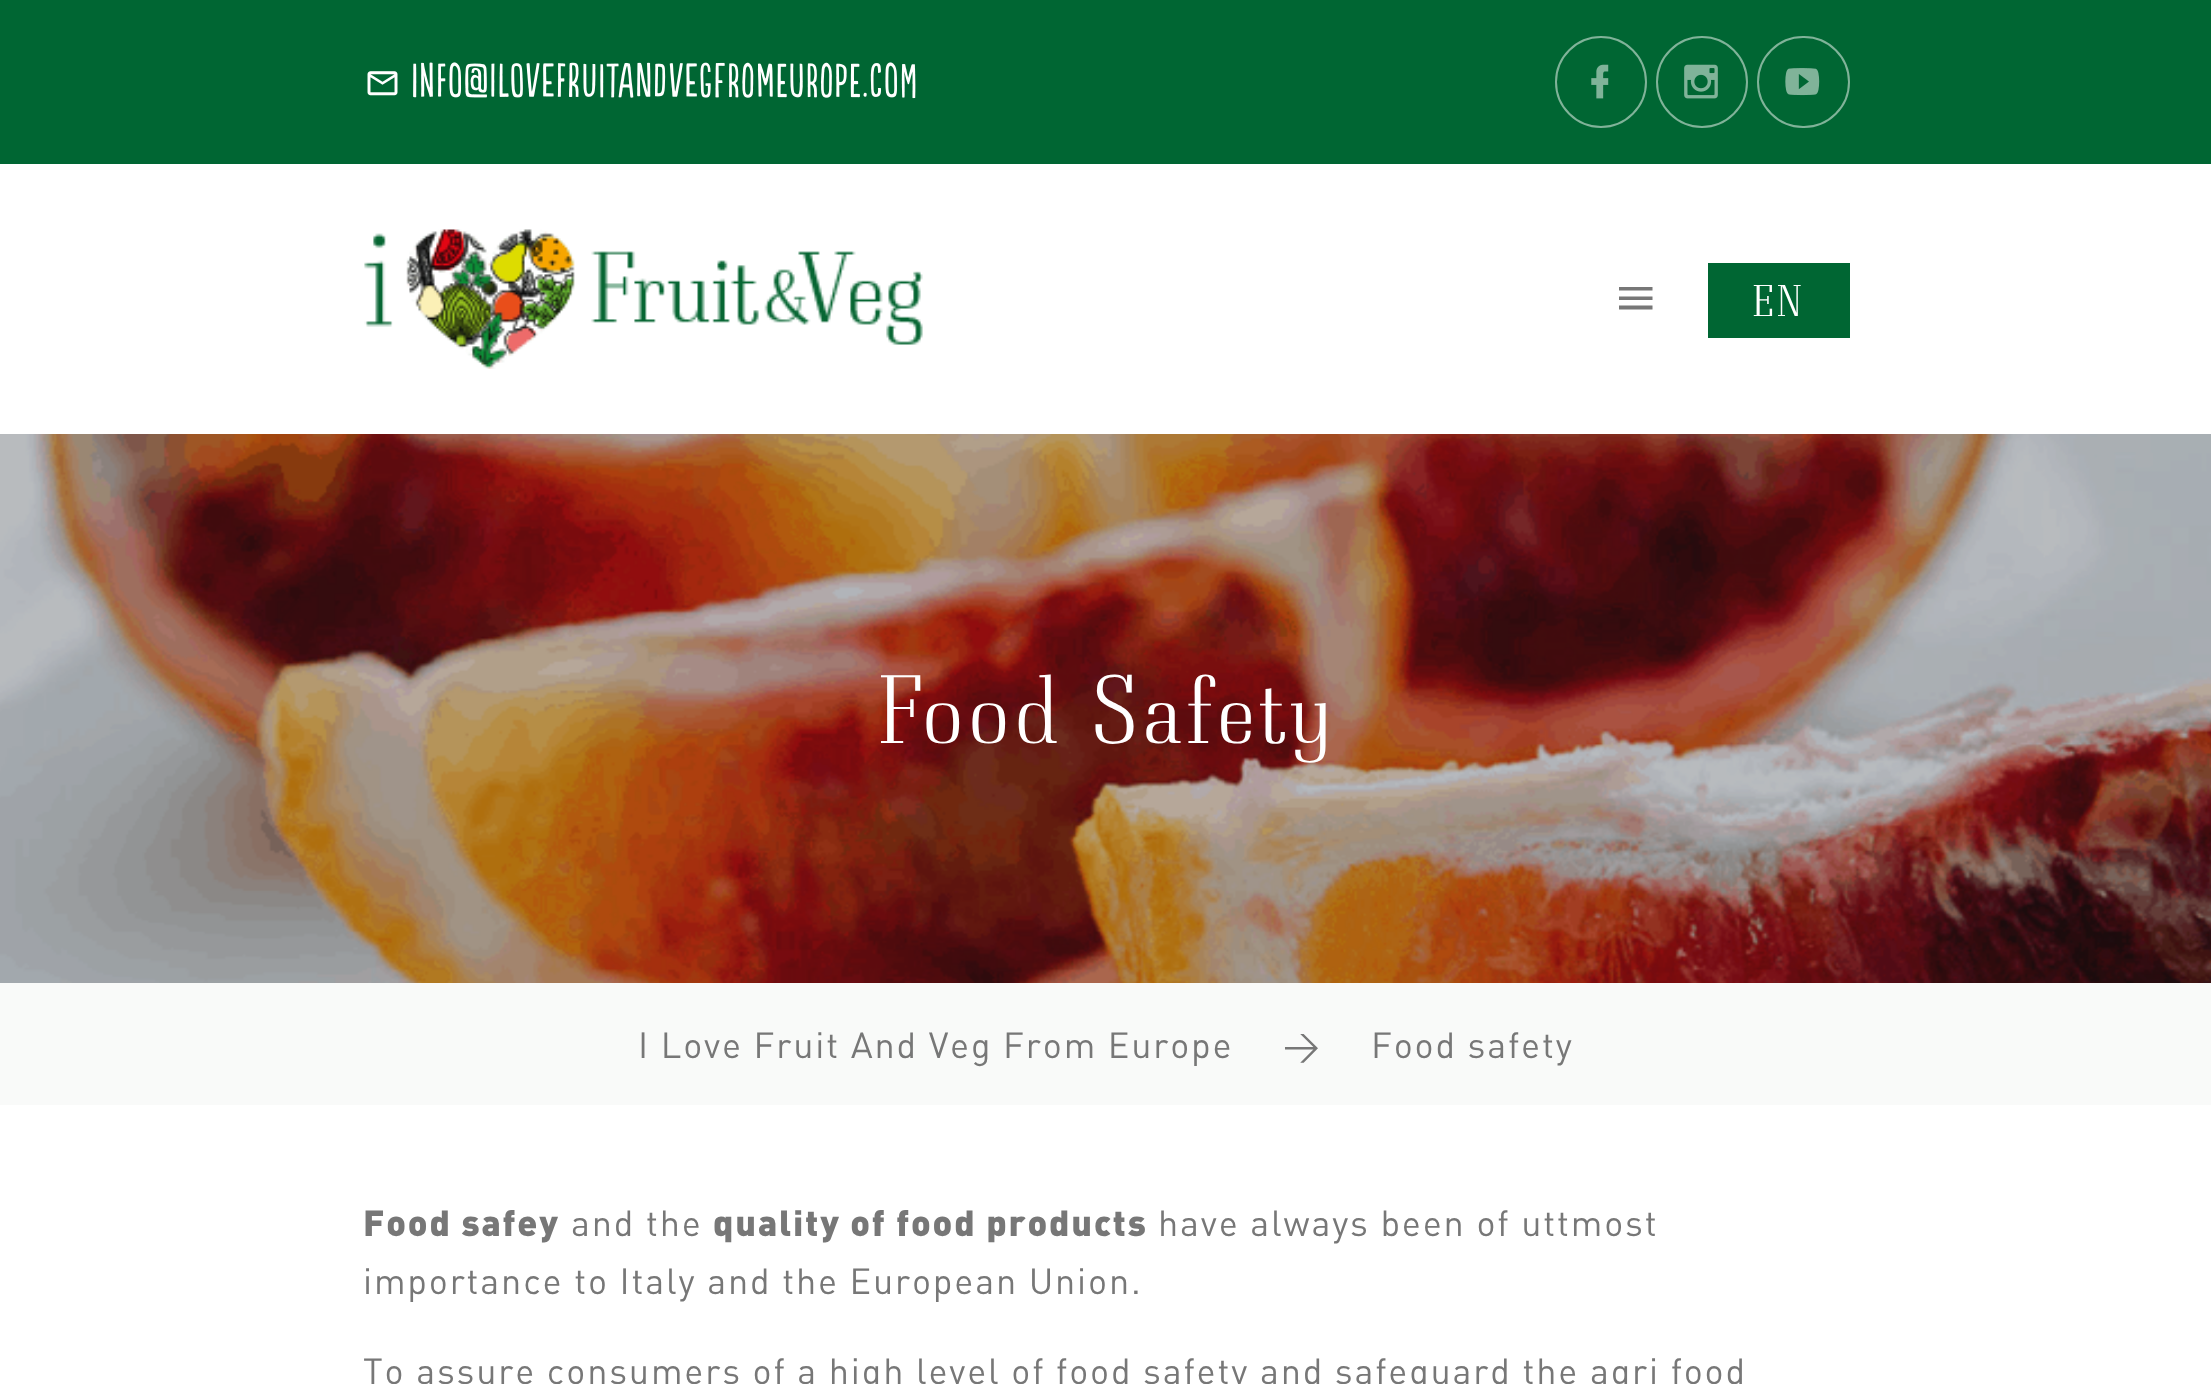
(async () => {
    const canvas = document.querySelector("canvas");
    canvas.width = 2211;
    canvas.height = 1384;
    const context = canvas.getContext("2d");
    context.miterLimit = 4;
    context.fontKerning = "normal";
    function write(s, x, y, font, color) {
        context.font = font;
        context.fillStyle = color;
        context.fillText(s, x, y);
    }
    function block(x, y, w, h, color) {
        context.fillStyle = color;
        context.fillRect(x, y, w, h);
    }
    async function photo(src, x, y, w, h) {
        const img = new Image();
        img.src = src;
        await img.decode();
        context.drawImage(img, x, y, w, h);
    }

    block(0, 0, 2211, 1384, "rgb(255, 255, 255)");
    block(0, 0, 2211, 164, "rgb(0, 102, 51)");
    await photo("media/1.png", 367, 71, 31, 25);
    await photo("media/2.png", 413, 62, 503, 37);
    context.beginPath();
    context.arc(1601, 82, 45, 0, Math.PI * 2);
    context.strokeStyle = "rgb(128, 179, 153)";
    context.lineWidth = 2;
    context.stroke();
    await photo("media/3.png", 1591, 64, 18, 35);
    context.beginPath();
    context.arc(1702, 82, 45, 0, Math.PI * 2);
    context.stroke();
    await photo("media/4.png", 1684, 64, 34, 35);
    context.beginPath();
    context.roundRect(1758, 37, 91, 90, 45);
    context.stroke();
    await photo("media/5.png", 1785, 68, 35, 28);
    await photo("media/6.png", 364, 229, 559, 140);
    context.fillStyle = "rgb(119, 119, 119)";
    context.beginPath();
    context.moveTo(1619, 287);
    context.lineTo(1652.5, 287);
    context.lineTo(1652.5, 290.5);
    context.lineTo(1619, 290.5);
    context.closePath();
    context.moveTo(1619, 296.5);
    context.lineTo(1652.5, 296.5);
    context.lineTo(1652.5, 300);
    context.lineTo(1619, 300);
    context.closePath();
    context.moveTo(1619, 305.5);
    context.lineTo(1652.5, 305.5);
    context.lineTo(1652.5, 309.5);
    context.lineTo(1619, 309.5);
    context.closePath();
    context.fill();
    block(1708, 263, 142, 75, "rgb(0, 102, 51)");
    context.letterSpacing = "1.8px";
    write("EN", 1752, 316, "36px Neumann", "rgb(255, 255, 255)");
    await photo("media/7.png", 0, 434, 2211, 549);
    context.letterSpacing = "4px";
    write("Food Safety", 877, 743, "78.75px Neumann", "rgb(255, 255, 255)");
    block(0, 983, 2211, 122, "rgb(249, 250, 249)");
    context.letterSpacing = "1.8px";
    write("I Love Fruit And Veg From Europe", 638, 1058, "36px DIN", "rgb(119, 119, 119)");
    write(">", 1283, 1058, "36px DIN", "rgb(119, 119, 119)");
    write("Food safety", 1371, 1058, "36px DIN", "rgb(119, 119, 119)");
    write("Food safey", 363, 1236, "900 36px DIN", "rgb(119, 119, 119)");
    write("and the", 571, 1236, "36px DIN", "rgb(119, 119, 119)");
    write("quality of food products", 713, 1236, "900 36px DIN", "rgb(119, 119, 119)");
    write("have always been of uttmost", 1158, 1236, "36px DIN", "rgb(119, 119, 119)");
    write("importance to Italy and the European Union.", 363, 1294, "36px DIN", "rgb(119, 119, 119)");
    write("To assure consumers of a high level of food safety and safeguard the agri food", 363, 1384, "36px DIN", "rgb(119, 119, 119)");
})();
